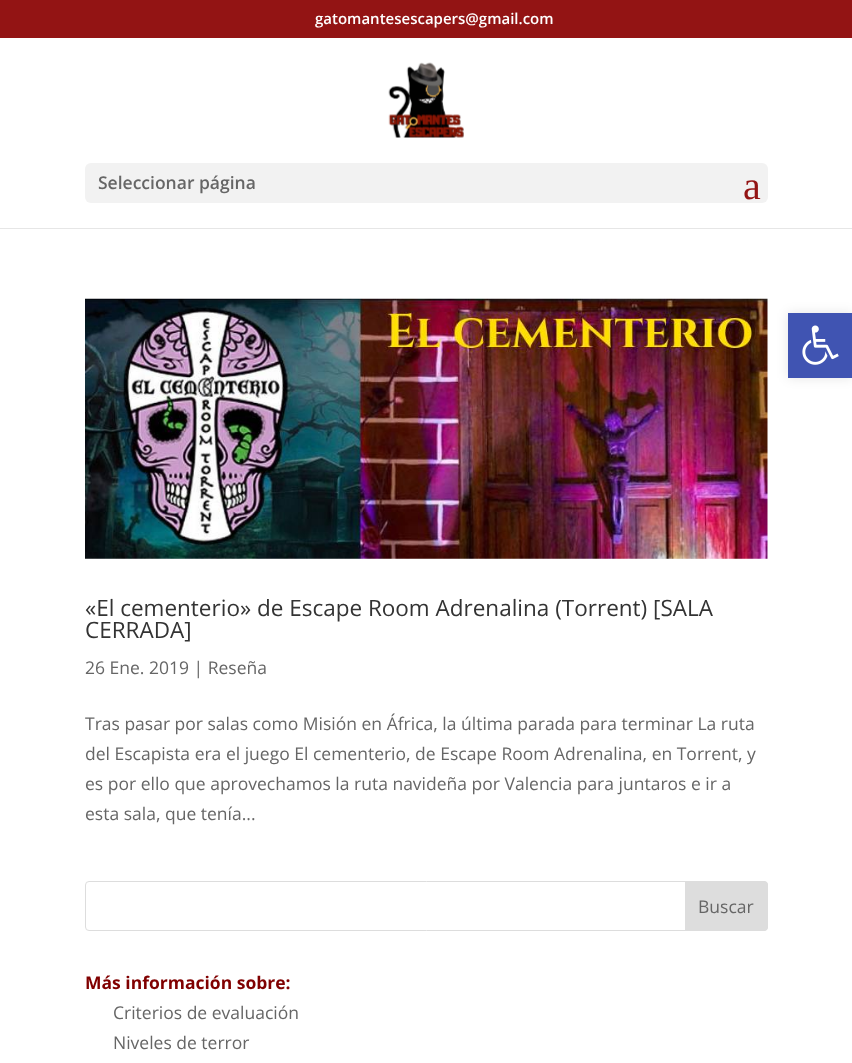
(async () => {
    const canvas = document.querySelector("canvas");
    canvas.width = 852;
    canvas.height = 1063;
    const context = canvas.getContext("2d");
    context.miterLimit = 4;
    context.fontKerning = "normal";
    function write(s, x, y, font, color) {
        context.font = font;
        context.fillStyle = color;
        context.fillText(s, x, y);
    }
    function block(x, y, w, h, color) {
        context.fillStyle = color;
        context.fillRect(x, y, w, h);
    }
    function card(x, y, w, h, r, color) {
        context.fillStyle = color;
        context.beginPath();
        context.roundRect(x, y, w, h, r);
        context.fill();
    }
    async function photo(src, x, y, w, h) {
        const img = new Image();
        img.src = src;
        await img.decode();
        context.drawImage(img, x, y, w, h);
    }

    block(0, 0, 852, 1063, "rgb(255, 255, 255)");
    block(0, 0, 852, 38, "rgb(147, 20, 20)");
    write("gatomantesescapers@gmail.com", 315, 24, "600 15px Open Sans", "rgb(255, 255, 255)");
    context.fillStyle = "rgb(230, 230, 230)";
    context.beginPath();
    context.moveTo(0, 228);
    context.lineTo(0, 229);
    context.lineTo(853, 229);
    context.lineTo(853, 39);
    context.lineTo(852, 39);
    context.lineTo(852, 228);
    context.closePath();
    context.fill();
    await photo("media/1.png", 388, 62, 76, 76);
    card(85, 163, 683, 40, 6, "rgb(242, 242, 242)");
    write("Seleccionar página", 98, 189, "600 17.5px Open Sans", "rgb(102, 102, 102)");
    write("a", 743, 199, "40px Liberation Serif", "rgb(147, 20, 20)");
    await photo("media/2.png", 85, 298, 683, 261);
    write("«El cementerio» de Escape Room Adrenalina (Torrent) [SALA", 85, 616, "22.5px Open Sans", "rgb(51, 51, 51)");
    write("CERRADA]", 85, 638, "22.5px Open Sans", "rgb(51, 51, 51)");
    write("26 Ene. 2019 | Reseña", 85, 674, "17.5px Open Sans", "rgb(102, 102, 102)");
    write("Tras pasar por salas como Misión en África, la última parada para terminar La ruta", 85, 730, "17.5px Open Sans", "rgb(102, 102, 102)");
    write("del Escapista era el juego El cementerio, de Escape Room Adrenalina, en Torrent, y", 85, 760, "17.5px Open Sans", "rgb(102, 102, 102)");
    write("es por ello que aprovechamos la ruta navideña por Valencia para juntaros e ir a", 85, 790, "17.5px Open Sans", "rgb(102, 102, 102)");
    write("esta sala, que tenía...", 85, 820, "17.5px Open Sans", "rgb(102, 102, 102)");
    context.beginPath();
    context.roundRect(85.5, 881.5, 682, 49, 3.5);
    context.strokeStyle = "rgb(221, 221, 221)";
    context.stroke();
    context.fillStyle = "rgb(221, 221, 221)";
    context.beginPath();
    context.roundRect(685.5, 881.5, 82, 49, [0, 3.5, 3.5, 0]);
    context.fill();
    context.stroke();
    write("Buscar", 698, 913, "17.5px Open Sans", "rgb(102, 102, 102)");
    write("Más información sobre:", 85, 989, "bold 17.5px Open Sans", "rgb(128, 0, 0)");
    write("Criterios de evaluación", 113, 1019, "17.5px Open Sans", "rgb(102, 102, 102)");
    write("Niveles de terror", 113, 1049, "17.5px Open Sans", "rgb(102, 102, 102)");
    context.fillStyle = "rgba(0, 0, 0, 0.1)";
    context.filter = "blur(6px)";
    context.beginPath();
    context.rect(788, 313, 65, 65);
    context.fill();
    context.filter = "none";
    block(788, 313, 64, 65, "rgb(64, 84, 178)");
    await photo("media/3.png", 802, 325, 37, 40);
})();
